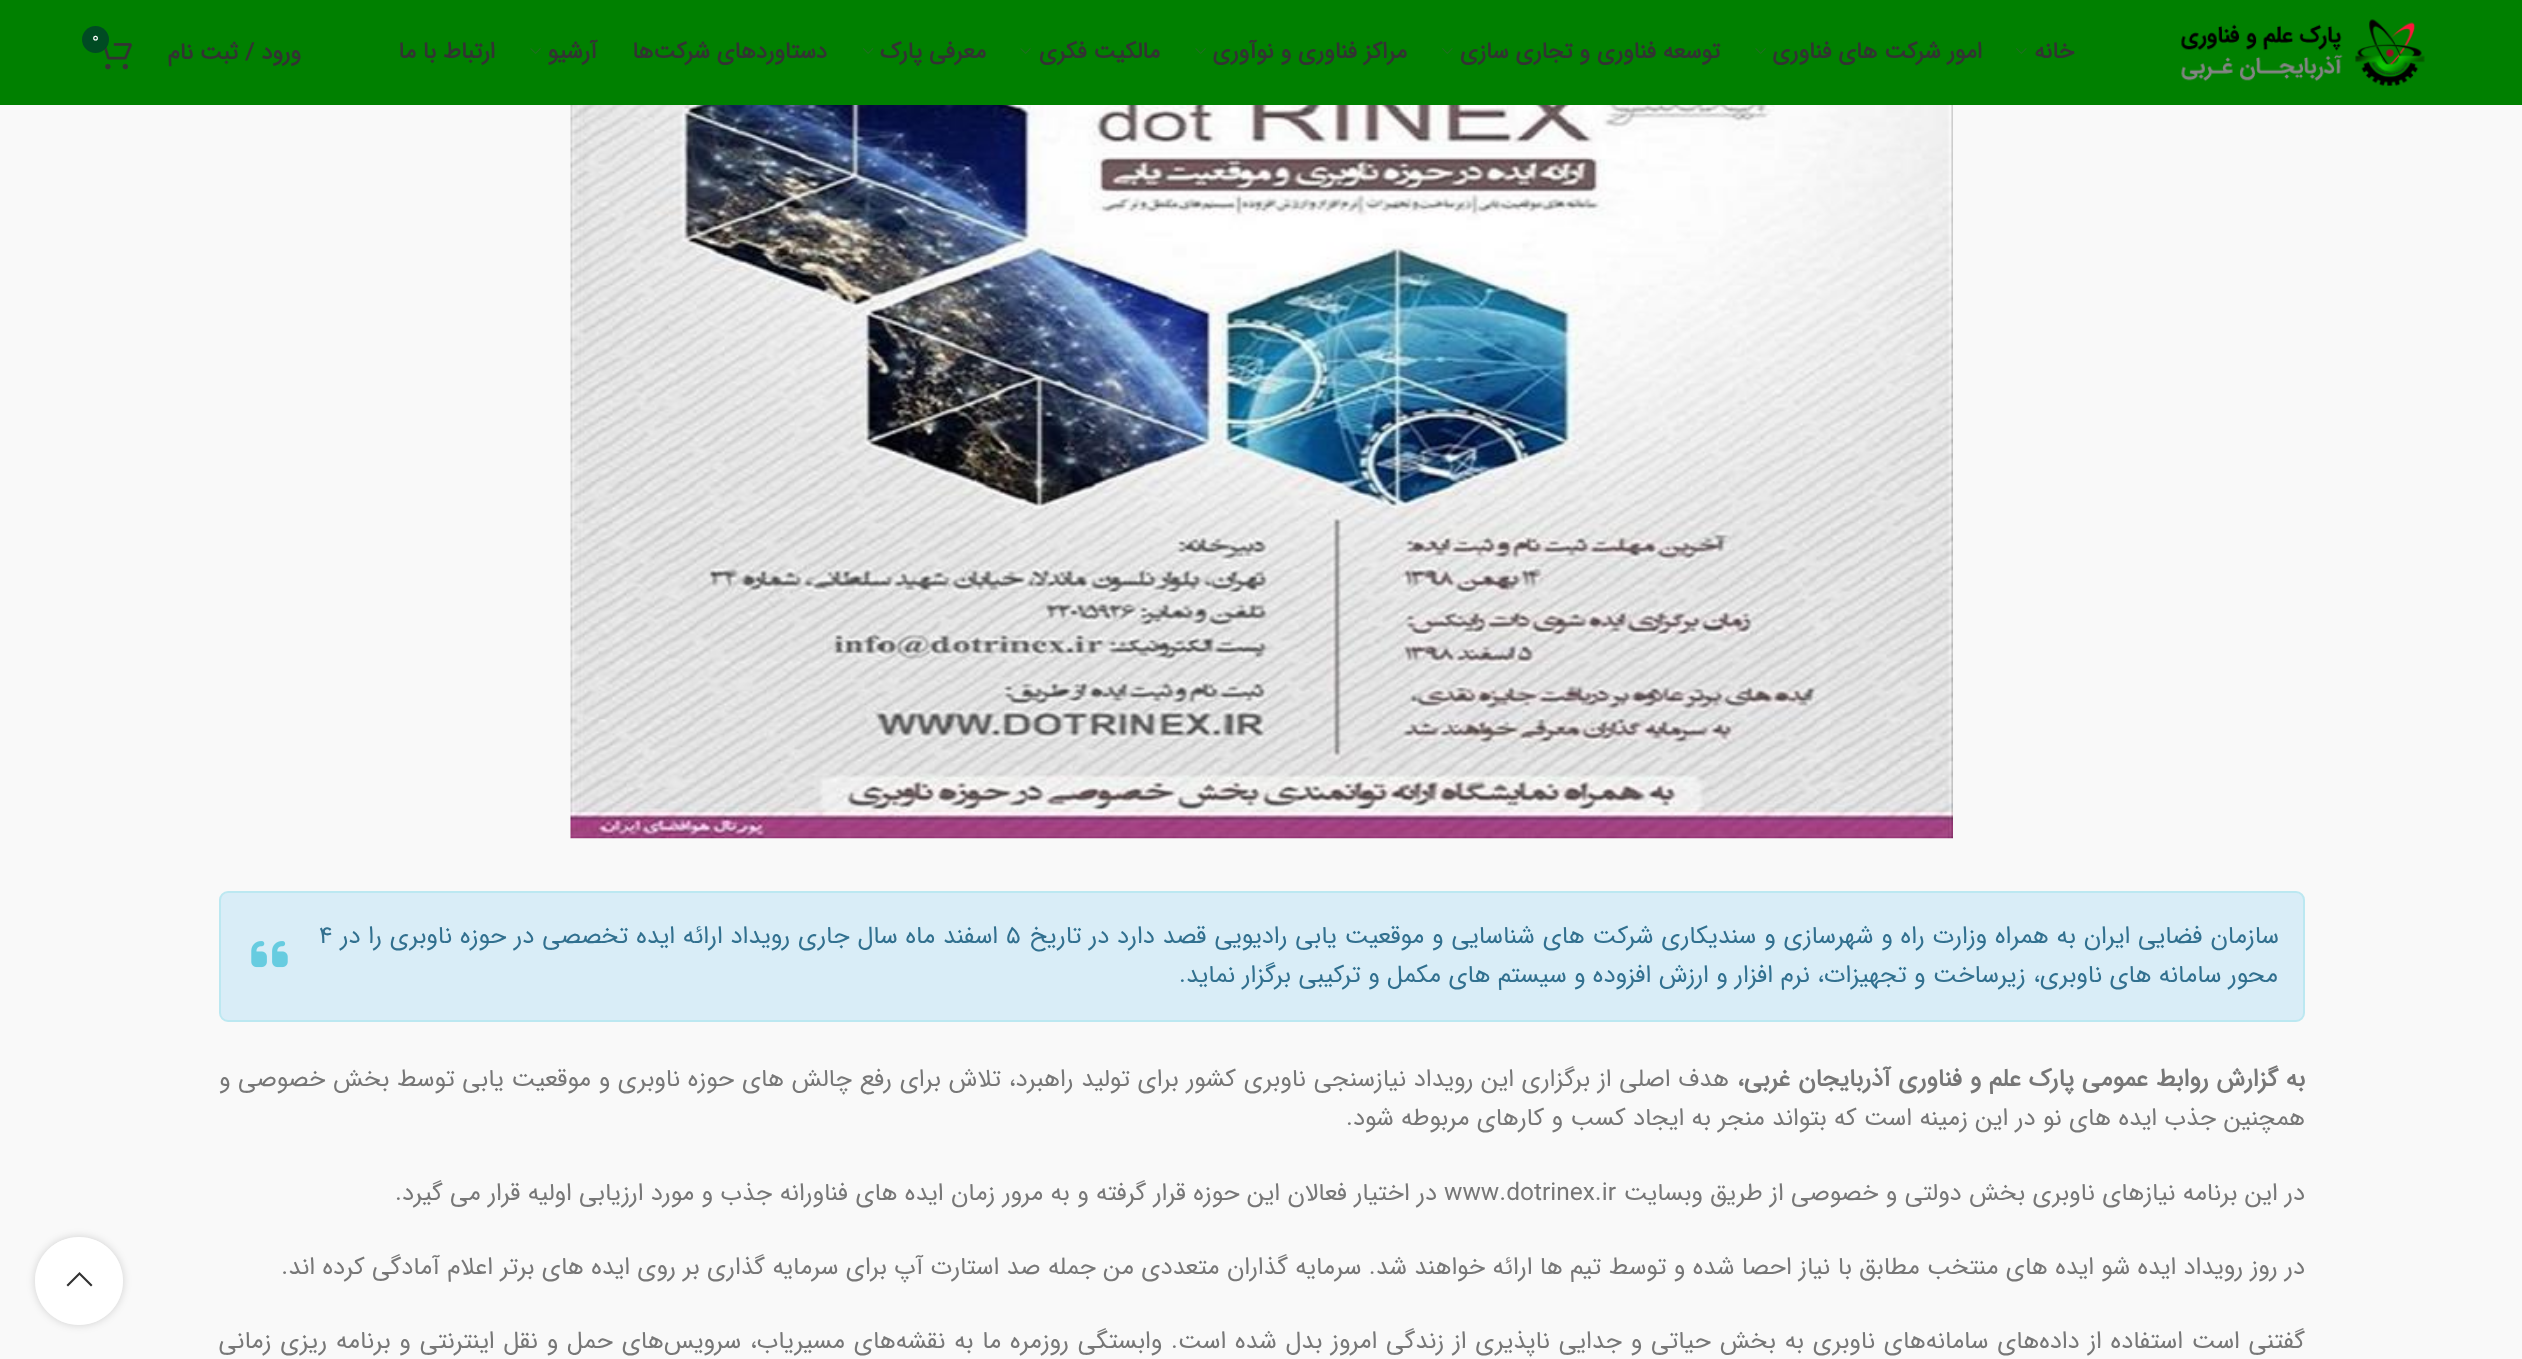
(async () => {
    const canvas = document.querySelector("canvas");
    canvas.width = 2522;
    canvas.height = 1359;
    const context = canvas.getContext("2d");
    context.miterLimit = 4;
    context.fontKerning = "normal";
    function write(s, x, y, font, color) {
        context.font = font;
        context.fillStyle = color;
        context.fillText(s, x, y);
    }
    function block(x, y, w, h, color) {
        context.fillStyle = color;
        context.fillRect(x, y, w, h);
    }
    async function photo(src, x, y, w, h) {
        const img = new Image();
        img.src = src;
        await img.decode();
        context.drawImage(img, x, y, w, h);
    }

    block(0, 0, 2522, 1359, "rgb(249, 249, 249)");
    block(0, 0, 2522, 105, "rgb(0, 128, 0)");
    await photo("media/1.png", 2181, 19, 244, 67);
    context.direction = "rtl";
    write("خانه", 2074, 58, "bold 22.75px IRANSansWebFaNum", "rgb(51, 51, 51)");
    await photo("media/2.png", 2016, 48, 11, 6);
    write("امور شرکت های فناوری", 1982, 58, "bold 22.75px IRANSansWebFaNum", "rgb(51, 51, 51)");
    await photo("media/3.png", 1755, 48, 11, 6);
    write("توسعه فناوری و تجاری سازی", 1720, 58, "bold 22.75px IRANSansWebFaNum", "rgb(51, 51, 51)");
    await photo("media/2.png", 1442, 48, 11, 6);
    write("مراکز فناوری و نوآوری", 1407, 58, "bold 22.75px IRANSansWebFaNum", "rgb(51, 51, 51)");
    await photo("media/3.png", 1195, 48, 11, 6);
    write("مالکیت فکری", 1160, 58, "bold 22.75px IRANSansWebFaNum", "rgb(51, 51, 51)");
    await photo("media/3.png", 1020, 48, 11, 6);
    write("معرفی‌ پارک", 986, 58, "bold 22.75px IRANSansWebFaNum", "rgb(51, 51, 51)");
    await photo("media/4.png", 863, 48, 11, 6);
    write("دستاوردهای شرکت‌ها", 827, 58, "bold 22.75px IRANSansWebFaNum", "rgb(51, 51, 51)");
    write("آرشیو", 597, 58, "bold 22.75px IRANSansWebFaNum", "rgb(51, 51, 51)");
    await photo("media/3.png", 530, 48, 11, 6);
    write("ارتباط با ما", 495, 58, "bold 22.75px IRANSansWebFaNum", "rgb(51, 51, 51)");
    await photo("media/5.png", 104, 43, 28, 27);
    context.fillStyle = "rgb(0, 75, 35)";
    context.beginPath();
    context.arc(95.5, 39.5, 13.5, 0, Math.PI * 2);
    context.fill();
    context.direction = "ltr";
    write("0", 92, 42, "16px IRANSansWebFaNum", "rgb(255, 255, 255)");
    context.direction = "rtl";
    write("ورود / ثبت نام", 301, 59, "bold 22.75px IRANSansWebFaNum", "rgb(51, 51, 51)");
    await photo("media/6.png", 570, 105, 1383, 734);
    context.fillStyle = "rgb(217, 237, 247)";
    context.beginPath();
    context.roundRect(220, 892, 2084, 129, 8);
    context.fill();
    context.strokeStyle = "rgb(188, 232, 241)";
    context.lineWidth = 2;
    context.stroke();
    context.wordSpacing = "0.5px";
    write("سازمان فضایی ایران به همراه وزارت راه و شهرسازی و سندیکاری شرکت های شناسایی و موقعیت یابی رادیویی قصد دارد در تاریخ", 2279, 943, "24.5px IRANSansWebFaNum", "rgb(49, 112, 143)");
    context.wordSpacing = "0px";
    context.direction = "ltr";
    write("۵", 1006, 943, "24.5px IRANSansWebFaNum", "rgb(49, 112, 143)");
    context.wordSpacing = "0.5px";
    context.direction = "rtl";
    write("اسفند ماه سال جاری رویداد ارائه ایده تخصصی در حوزه ناوبری را در", 998, 943, "24.5px IRANSansWebFaNum", "rgb(49, 112, 143)");
    context.wordSpacing = "0px";
    context.direction = "ltr";
    write("۴", 319, 943, "24.5px IRANSansWebFaNum", "rgb(49, 112, 143)");
    context.direction = "rtl";
    write("محور سامانه های ناوبری، زیرساخت و تجهیزات، نرم افزار و ارزش افزوده و سیستم های مکمل و ترکیبی برگزار نماید.", 2278, 982, "24.5px IRANSansWebFaNum", "rgb(49, 112, 143)");
    await photo("media/7.png", 251, 941, 37, 27);
    context.wordSpacing = "0.3px";
    write("به گزارش روابط عمومی پارک علم و فناوری آذربایجان غربی،", 2305, 1086, "bold 24.5px IRANSansWebFaNum", "rgb(119, 119, 119)");
    write("هدف اصلی از برگزاری این رویداد نیازسنجی ناوبری کشور برای تولید راهبرد، تلاش برای رفع چالش های حوزه ناوبری و موقعیت یابی توسط بخش خصوصی و", 1729, 1086, "24.5px IRANSansWebFaNum", "rgb(119, 119, 119)");
    context.wordSpacing = "0px";
    write("همچنین جذب ایده های نو در این زمینه است که بتواند منجر به ایجاد کسب و کارهای مربوطه شود.", 2305, 1125, "24.5px IRANSansWebFaNum", "rgb(119, 119, 119)");
    write("در این برنامه نیازهای ناوبری بخش دولتی و خصوصی از طریق وبسایت", 2305, 1200, "24.5px IRANSansWebFaNum", "rgb(119, 119, 119)");
    context.direction = "ltr";
    write("www.dotrinex.ir", 1444, 1200, "24.5px IRANSansWebFaNum", "rgb(119, 119, 119)");
    context.direction = "rtl";
    write("در اختیار فعالان این حوزه قرار گرفته و به مرور زمان ایده های فناورانه جذب و مورد ارزیابی اولیه قرار می گیرد.", 1437, 1200, "24.5px IRANSansWebFaNum", "rgb(119, 119, 119)");
    write("در روز رویداد ایده شو ایده های منتخب مطابق با نیاز احصا شده و توسط تیم ها ارائه خواهند شد. سرمایه گذاران متعددی من جمله صد استارت آپ برای سرمایه گذاری بر روی ایده های برتر اعلام آمادگی کرده اند.", 2305, 1274, "24.5px IRANSansWebFaNum", "rgb(119, 119, 119)");
    context.wordSpacing = "1.4px";
    write("گفتنی است استفاده از داده‌های سامانه‌های ناوبری به بخش حیاتی و جدایی ناپذیری از زندگی امروز بدل شده است. وابستگی روزمره ما به نقشه‌های مسیریاب، سرویس‌های حمل و نقل اینترنتی و برنامه ریزی زمانی", 2305, 1348, "24.5px IRANSansWebFaNum", "rgb(119, 119, 119)");
    context.save();
    context.beginPath();
    context.moveTo(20, 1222);
    context.lineTo(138, 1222);
    context.lineTo(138, 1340);
    context.lineTo(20, 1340);
    context.closePath();
    context.moveTo(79, 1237);
    context.bezierCurveTo(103.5, 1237, 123, 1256.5, 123, 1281);
    context.bezierCurveTo(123, 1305.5, 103.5, 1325, 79, 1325);
    context.bezierCurveTo(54.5, 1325, 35, 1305.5, 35, 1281);
    context.bezierCurveTo(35, 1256.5, 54.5, 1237, 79, 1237);
    context.closePath();
    context.clip("evenodd");
    context.fillStyle = "rgba(0, 0, 0, 0.17)";
    context.filter = "blur(4.5px)";
    context.beginPath();
    context.roundRect(35, 1237, 88, 88, 44);
    context.fill();
    context.filter = "none";
    context.restore();
    context.fillStyle = "rgba(255, 255, 255, 0.9)";
    context.beginPath();
    context.arc(79, 1281, 44, 0, Math.PI * 2);
    context.fill();
    context.fillStyle = "rgb(51, 51, 51)";
    context.beginPath();
    context.moveTo(91, 1286.5);
    context.lineTo(92.5, 1285);
    context.lineTo(79.5, 1272);
    context.lineTo(66.5, 1285);
    context.lineTo(68, 1286.5);
    context.lineTo(79.5, 1275);
    context.closePath();
    context.fill();
})();
